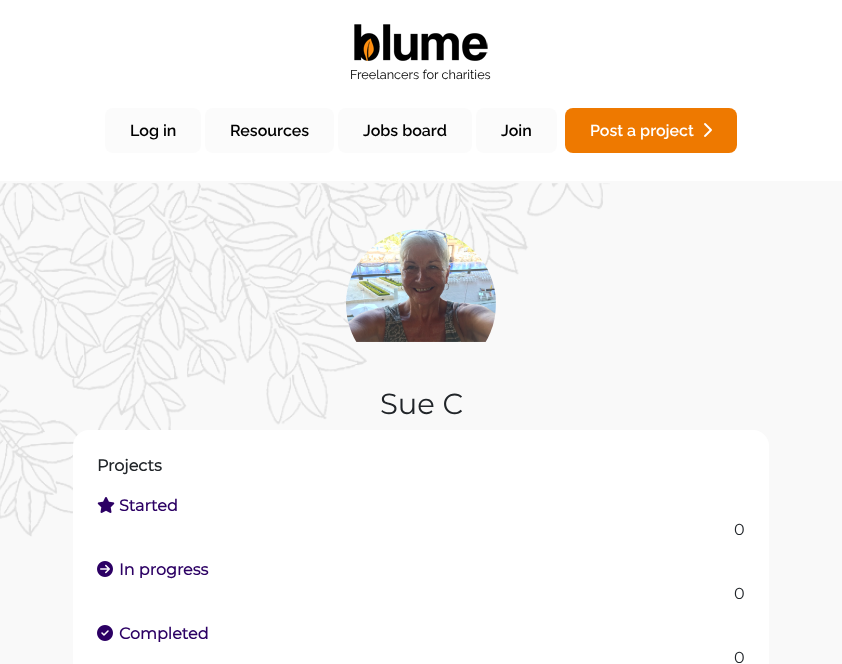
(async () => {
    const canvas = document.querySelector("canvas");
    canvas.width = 842;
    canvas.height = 664;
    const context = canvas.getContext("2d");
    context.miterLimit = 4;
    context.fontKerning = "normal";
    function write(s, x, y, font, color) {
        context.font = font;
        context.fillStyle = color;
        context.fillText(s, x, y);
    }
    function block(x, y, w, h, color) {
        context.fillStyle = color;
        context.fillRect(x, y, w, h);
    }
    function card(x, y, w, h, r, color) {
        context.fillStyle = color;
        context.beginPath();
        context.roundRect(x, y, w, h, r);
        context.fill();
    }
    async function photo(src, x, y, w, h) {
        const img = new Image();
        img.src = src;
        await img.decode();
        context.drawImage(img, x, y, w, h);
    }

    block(0, 0, 842, 664, "rgb(255, 255, 255)");
    await photo("media/1.png", 354, 24, 134, 37);
    write("Freelancers for charities", 350, 79, "12.75px Raleway", "rgb(0, 0, 0)");
    card(105, 108, 96, 45, 8, "rgb(251, 251, 251)");
    write("Log in", 130, 136, "600 16px Raleway", "rgb(0, 0, 0)");
    card(205, 108, 129, 45, 8, "rgb(251, 251, 251)");
    write("Resources", 230, 136, "600 16px Raleway", "rgb(0, 0, 0)");
    card(338, 108, 134, 45, 8, "rgb(251, 251, 251)");
    write("Jobs board", 363, 136, "600 16px Raleway", "rgb(0, 0, 0)");
    card(476, 108, 81, 45, 8, "rgb(251, 251, 251)");
    write("Join", 501, 136, "600 16px Raleway", "rgb(0, 0, 0)");
    card(565, 108, 172, 45, 8, "rgb(238, 121, 0)");
    write("Post a project", 590, 136, "600 16px Raleway", "rgb(255, 255, 255)");
    await photo("media/2.png", 704, 123, 8, 14);
    block(0, 181, 842, 483, "rgb(249, 249, 249)");
    await photo("media/3.png", 0, 183, 610, 354);
    await photo("media/4.png", 346, 229, 150, 113);
    write("Sue C", 380, 414, "100 29px Montserrat", "rgb(33, 37, 41)");
    card(73, 430, 696, 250, 16, "rgb(255, 255, 255)");
    write("Projects", 97, 471, "bold 16px Montserrat", "rgb(33, 37, 41)");
    await photo("media/5.png", 97, 497, 18, 16);
    write("Started", 119, 511, "bold 16px Montserrat", "rgb(44, 0, 100)");
    write("0", 734, 535, "100 16px Montserrat", "rgb(33, 37, 41)");
    await photo("media/6.png", 97, 561, 16, 16);
    write("In progress", 119, 575, "bold 16px Montserrat", "rgb(44, 0, 100)");
    write("0", 734, 599, "100 16px Montserrat", "rgb(33, 37, 41)");
    await photo("media/7.png", 97, 625, 16, 16);
    write("Completed", 119, 639, "bold 16px Montserrat", "rgb(44, 0, 100)");
    write("0", 734, 663, "100 16px Montserrat", "rgb(33, 37, 41)");
})();
